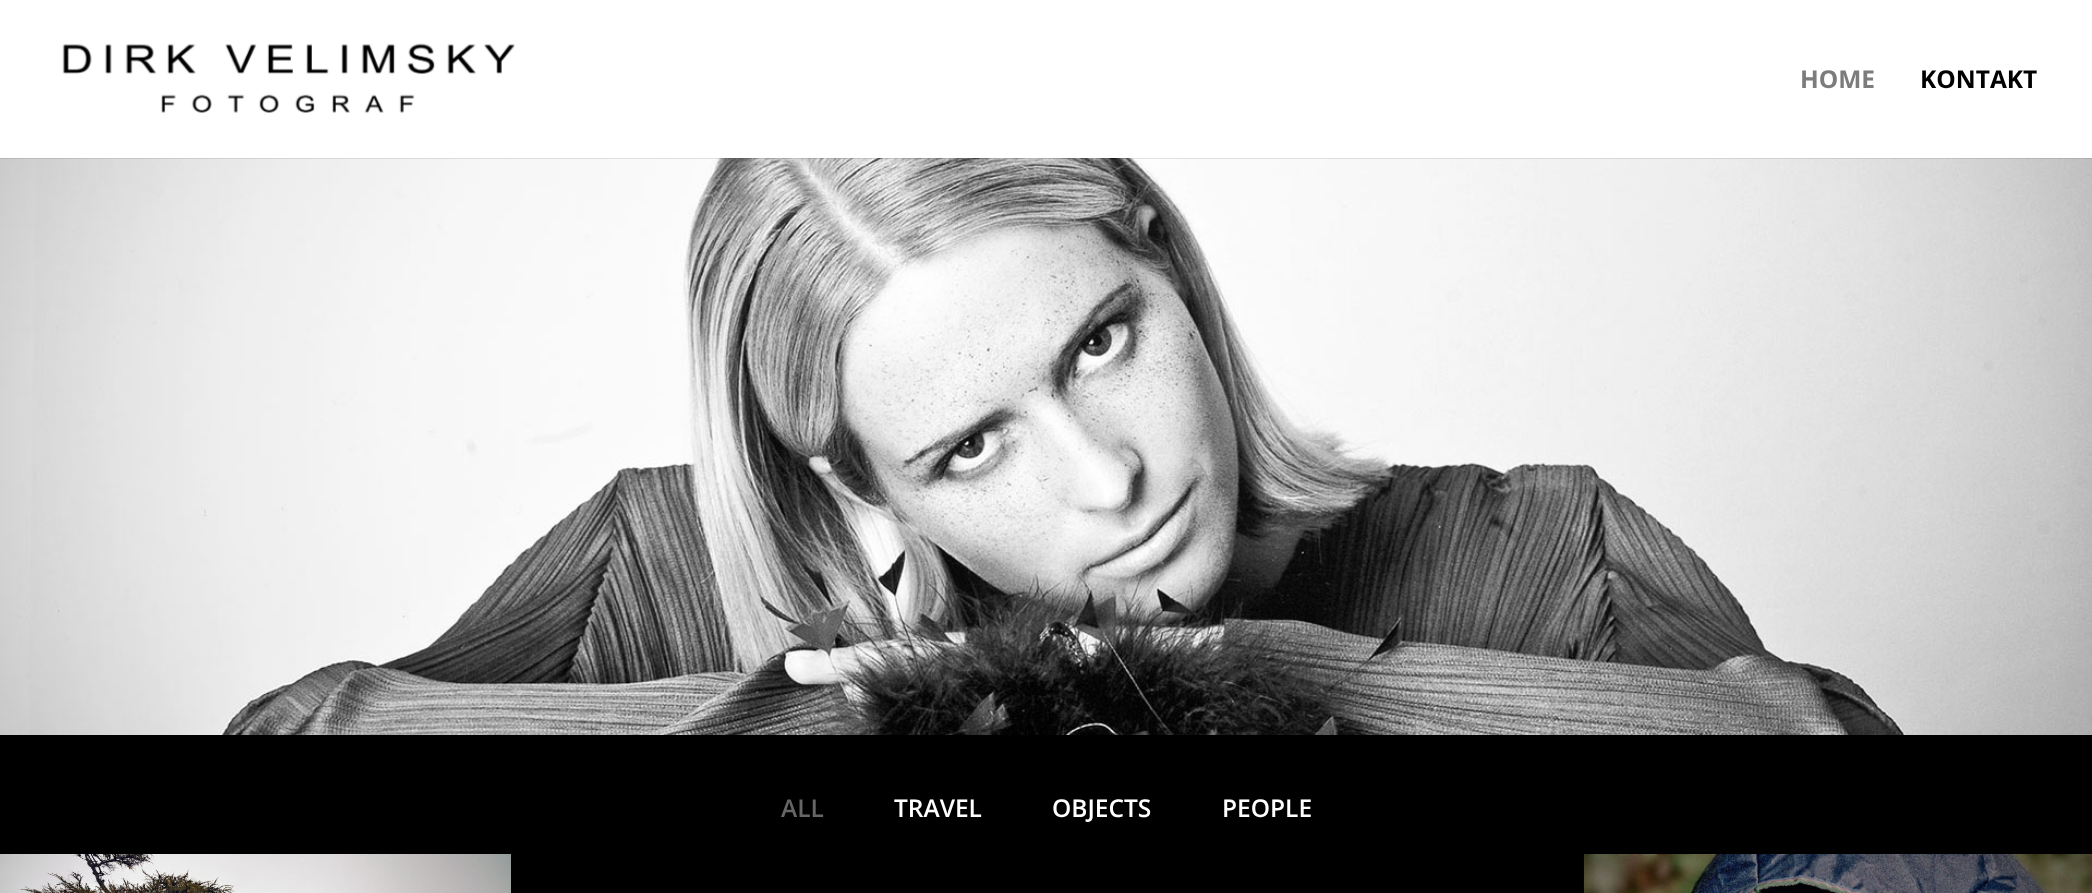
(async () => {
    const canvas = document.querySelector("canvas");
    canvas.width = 2092;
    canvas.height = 893;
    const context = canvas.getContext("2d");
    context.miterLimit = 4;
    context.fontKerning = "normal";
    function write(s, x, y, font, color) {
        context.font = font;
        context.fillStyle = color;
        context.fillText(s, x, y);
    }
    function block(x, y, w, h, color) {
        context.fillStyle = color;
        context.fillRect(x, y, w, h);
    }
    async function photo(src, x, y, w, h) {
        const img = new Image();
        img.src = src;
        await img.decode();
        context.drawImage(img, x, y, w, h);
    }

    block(0, 0, 2092, 893, "rgb(255, 255, 255)");
    await photo("media/2.png", 0, 158, 2092, 577);
    block(0, 158, 2092, 1, "rgba(0, 0, 0, 0.1)");
    await photo("media/1.png", 62, 43, 453, 70);
    write("HOME", 1800, 88, "bold 24.5px Open Sans", "rgb(124, 124, 124)");
    write("KONTAKT", 1920, 88, "bold 24.5px Open Sans", "rgb(0, 0, 0)");
    block(0, 735, 2092, 158, "rgb(0, 0, 0)");
    write("ALL", 781, 817, "600 24.5px Open Sans", "rgb(102, 102, 102)");
    write("TRAVEL", 894, 817, "600 24.5px Open Sans", "rgb(255, 255, 255)");
    write("OBJECTS", 1052, 817, "600 24.5px Open Sans", "rgb(255, 255, 255)");
    write("PEOPLE", 1222, 817, "600 24.5px Open Sans", "rgb(255, 255, 255)");
    await photo("media/3.png", 0, 854, 511, 39);
    await photo("media/4.png", 1583, 854, 509, 39);
})();
